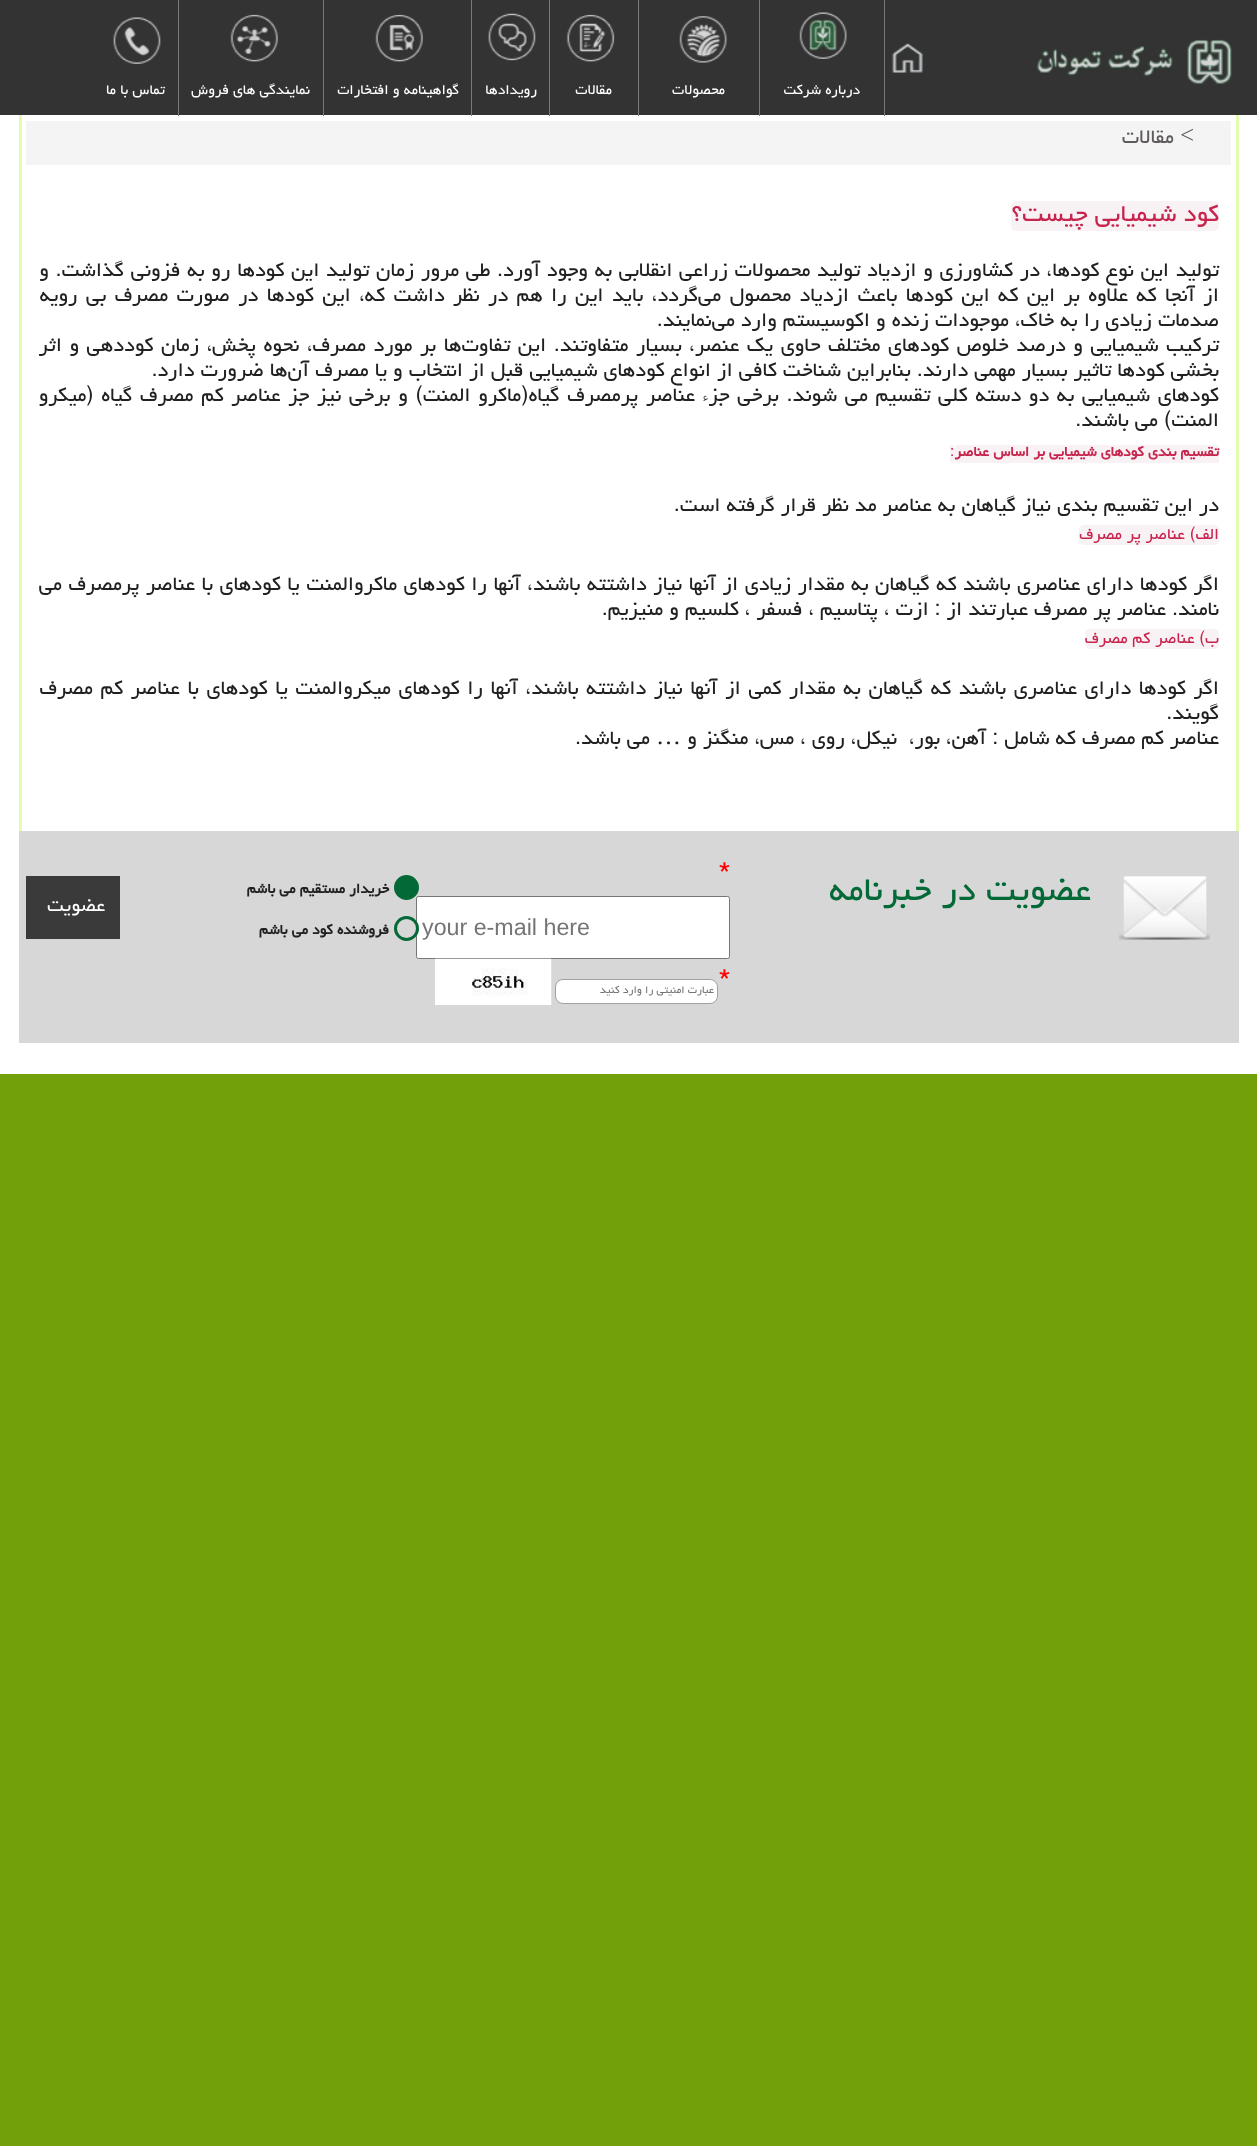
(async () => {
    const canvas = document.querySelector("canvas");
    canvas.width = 1257;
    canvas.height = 2146;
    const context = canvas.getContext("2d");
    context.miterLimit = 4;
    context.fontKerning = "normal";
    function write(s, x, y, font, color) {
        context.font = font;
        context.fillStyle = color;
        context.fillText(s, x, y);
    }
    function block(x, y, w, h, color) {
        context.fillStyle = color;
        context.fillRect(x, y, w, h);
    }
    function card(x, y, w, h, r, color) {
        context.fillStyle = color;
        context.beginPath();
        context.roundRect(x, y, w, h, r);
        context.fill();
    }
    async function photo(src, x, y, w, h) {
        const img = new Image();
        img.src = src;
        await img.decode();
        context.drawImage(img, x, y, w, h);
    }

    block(0, 0, 1257, 2146, "rgb(114, 160, 9)");
    block(0, 0, 1257, 115, "rgb(51, 51, 51)");
    await photo("media/1.png", 1036, 39, 196, 45);
    await photo("media/2.png", 891, 43, 32, 30);
    block(0, 115, 1257, 959, "rgb(255, 255, 255)");
    block(884, 0, 1, 116, "rgb(121, 121, 117)");
    await photo("media/3.png", 799, 12, 48, 47);
    context.direction = "rtl";
    write("درباره شرکت", 860, 94, "17.5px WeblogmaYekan", "rgb(255, 255, 255)");
    block(759, 0, 1, 116, "rgb(121, 121, 117)");
    await photo("media/4.png", 679, 16, 48, 47);
    write("محصولات", 725, 94, "17.5px WeblogmaYekan", "rgb(255, 255, 255)");
    block(638, 0, 1, 116, "rgb(121, 121, 117)");
    await photo("media/5.png", 566, 14, 49, 48);
    write("مقالات", 612, 94, "17.5px WeblogmaYekan", "rgb(255, 255, 255)");
    block(549, 0, 1, 116, "rgb(121, 121, 117)");
    await photo("media/6.png", 488, 13, 48, 48);
    write("رویدادها", 537, 94, "17.5px WeblogmaYekan", "rgb(255, 255, 255)");
    block(471, 0, 1, 116, "rgb(121, 121, 117)");
    await photo("media/7.png", 375, 14, 48, 48);
    write("گواهینامه و افتخارات", 459, 94, "17.5px WeblogmaYekan", "rgb(255, 255, 255)");
    block(323, 0, 1, 116, "rgb(121, 121, 117)");
    await photo("media/8.png", 230, 14, 48, 48);
    write("نمایندگی های فروش", 310, 94, "17.5px WeblogmaYekan", "rgb(255, 255, 255)");
    block(178, 0, 1, 116, "rgb(121, 121, 117)");
    await photo("media/9.png", 113, 17, 48, 47);
    write("تماس با ما", 165, 94, "17.5px WeblogmaYekan", "rgb(255, 255, 255)");
    block(1236, 115, 3, 716, "rgb(228, 252, 173)");
    block(19, 115, 3, 716, "rgb(228, 252, 173)");
    block(26, 121, 1205, 44, "rgb(244, 244, 244)");
    write(">", 1194, 143, "25px Liberation Serif", "rgb(96, 91, 91)");
    write("مقالات", 1174, 143, "25px WeblogmaYekan", "rgb(96, 91, 91)");
    card(1011, 201, 208, 30, 5, "rgb(249, 242, 244)");
    write("کود شیمیایی چیست؟", 1219, 221, "30px WeblogmaYekan", "rgb(199, 37, 78)");
    context.wordSpacing = "0.65px";
    write("تولید این نوع کود‌ها، در کشاورزی و ازدیاد تولید محصولات زراعی انقلابی به وجود آورد. طی مرور زمان تولید این کود‌ها رو به فزونی گذاشت. و", 1219, 276, "25px WeblogmaYekan", "rgb(33, 33, 33)");
    context.wordSpacing = "2.4px";
    write("از آنجا که علاوه بر این که این کود‌‌ها باعث ازدیاد محصول می‌گردد، باید این را هم در نظر داشت که، این کود‌ها در صورت مصرف بی رویه", 1219, 301, "25px WeblogmaYekan", "rgb(33, 33, 33)");
    context.wordSpacing = "0px";
    write("صدمات زیادی را به خاک، موجودات زنده و اکوسیستم وارد می‌نمایند.", 1219, 326, "25px WeblogmaYekan", "rgb(33, 33, 33)");
    context.wordSpacing = "1.5px";
    write("ترکیب شیمیایی و درصد خلوص کود‌های مختلف حاوی یک عنصر، بسیار متفاوتند. این تفاوت‌ها بر مورد مصرف، نحوه پخش، زمان کوددهی و اثر", 1219, 351, "25px WeblogmaYekan", "rgb(33, 33, 33)");
    context.wordSpacing = "0px";
    write("بخشی کود‌ها تاثیر بسیار مهمی دارند. بنابراین شناخت کافی از انواع کود‌های شیمیایی قبل از انتخاب و یا مصرف آن‌ها ضرورت دارد.", 1219, 376, "25px WeblogmaYekan", "rgb(33, 33, 33)");
    context.wordSpacing = "1.7px";
    write("کود‌های شیمیایی به دو دسته کلی تقسیم می شوند. برخی جزء عناصر پرمصرف گیاه(ماکرو المنت) و برخی نیز جز عناصر کم مصرف گیاه (میکرو", 1219, 401, "25px WeblogmaYekan", "rgb(33, 33, 33)");
    context.wordSpacing = "0px";
    write("المنت) می باشند.", 1219, 426, "25px WeblogmaYekan", "rgb(33, 33, 33)");
    context.fillStyle = "rgb(249, 242, 244)";
    context.beginPath();
    context.roundRect(954, 445, 265, 18, [5, 0, 0, 5]);
    context.fill();
    write("تقسیم بندی کودهای شیمیایی بر اساس عناصر", 1219, 456, "bold 17.5px WeblogmaYekan", "rgb(199, 37, 78)");
    context.fillStyle = "rgb(249, 242, 244)";
    context.beginPath();
    context.roundRect(950, 445, 4, 18, [0, 2, 2, 0]);
    context.fill();
    context.direction = "ltr";
    write(":", 950, 456, "17.5px WeblogmaYekan", "rgb(199, 37, 78)");
    context.direction = "rtl";
    write("در این تقسیم بندی نیاز گیاهان به عناصر مد نظر قرار گرفته است.", 1219, 511, "25px WeblogmaYekan", "rgb(33, 33, 33)");
    card(1079, 525, 140, 20, 5, "rgb(249, 242, 244)");
    write("الف) عناصر پر مصرف", 1219, 539, "20px WeblogmaYekan", "rgb(199, 37, 78)");
    context.wordSpacing = "0.5px";
    write("اگر کودها دارای عناصری باشند که گیاهان به مقدار زیادی از آنها نیاز داشتته باشند، آنها را کودهای ماکروالمنت یا کودهای با عناصر پرمصرف می", 1219, 590, "25px WeblogmaYekan", "rgb(33, 33, 33)");
    context.wordSpacing = "0px";
    write("نامند. عناصر پر مصرف عبارتند از : ازت ، پتاسیم ، فسفر ، کلسیم و منیزیم.", 1219, 615, "25px WeblogmaYekan", "rgb(33, 33, 33)");
    card(1085, 629, 134, 20, 5, "rgb(249, 242, 244)");
    write("ب) عناصر کم مصرف", 1219, 643, "20px WeblogmaYekan", "rgb(199, 37, 78)");
    context.wordSpacing = "1.6px";
    write("اگر کودها دارای عناصری باشند که گیاهان به مقدار کمی از آنها نیاز داشتته باشند، آنها را کودهای میکروالمنت یا کودهای با عناصر کم مصرف", 1219, 694, "25px WeblogmaYekan", "rgb(33, 33, 33)");
    context.wordSpacing = "0px";
    write("گویند.", 1219, 719, "25px WeblogmaYekan", "rgb(33, 33, 33)");
    write("عناصر کم مصرف که شامل : آهن، بور،", 1219, 744, "25px WeblogmaYekan", "rgb(33, 33, 33)");
    write("نیکل، روی ، مس، منگنز و", 897, 744, "25px WeblogmaYekan", "rgb(33, 33, 33)");
    write("…", 681, 744, "25px Liberation Serif", "rgb(33, 33, 33)");
    write("می باشد.", 650, 744, "25px WeblogmaYekan", "rgb(33, 33, 33)");
    block(19, 831, 1220, 212, "rgb(216, 215, 215)");
    await photo("media/10.png", 1118, 876, 92, 64);
    write("عضویت در خبرنامه", 1091, 900, "42.25px WeblogmaYekan", "rgb(2, 105, 55)");
    context.direction = "ltr";
    write("*", 718, 886, "38px WeblogmaYekan", "rgb(255, 0, 0)");
    context.fillStyle = "rgb(255, 255, 255)";
    context.beginPath();
    context.roundRect(416.5, 896.5, 313, 62, 2);
    context.fill();
    context.strokeStyle = "rgb(118, 118, 118)";
    context.stroke();
    write("your e-mail here", 422, 935, "23.25px Liberation Sans", "rgb(117, 117, 117)");
    write("*", 718, 993, "38px WeblogmaYekan", "rgb(255, 0, 0)");
    await photo("media/11.png", 435, 958, 117, 47);
    context.fillStyle = "rgb(255, 255, 255)";
    context.beginPath();
    context.roundRect(555.5, 979.5, 162, 24, 7.5);
    context.fill();
    context.strokeStyle = "rgb(161, 161, 161)";
    context.stroke();
    context.direction = "rtl";
    write("عبارت امنیتی را وارد کنید", 714, 993, "13.25px WeblogmaYekan", "rgb(117, 117, 117)");
    context.fillStyle = "rgb(2, 105, 55)";
    context.beginPath();
    context.arc(406.5, 887.5, 11, 0, Math.PI * 2);
    context.fill();
    context.strokeStyle = "rgb(2, 105, 55)";
    context.lineWidth = 3;
    context.stroke();
    write("خریدار مستقیم می باشم", 389, 893, "bold 17.5px WeblogmaYekan", "rgb(33, 33, 33)");
    context.fillStyle = "rgb(216, 215, 215)";
    context.beginPath();
    context.arc(406.5, 928.5, 11, 0, Math.PI * 2);
    context.fill();
    context.stroke();
    write("فروشنده کود می باشم", 389, 934, "bold 17.5px WeblogmaYekan", "rgb(33, 33, 33)");
    block(26, 876, 94, 63, "rgb(58, 58, 58)");
    write("عضویت", 105, 911, "23.25px WeblogmaYekan", "rgb(255, 255, 255)");
})();
